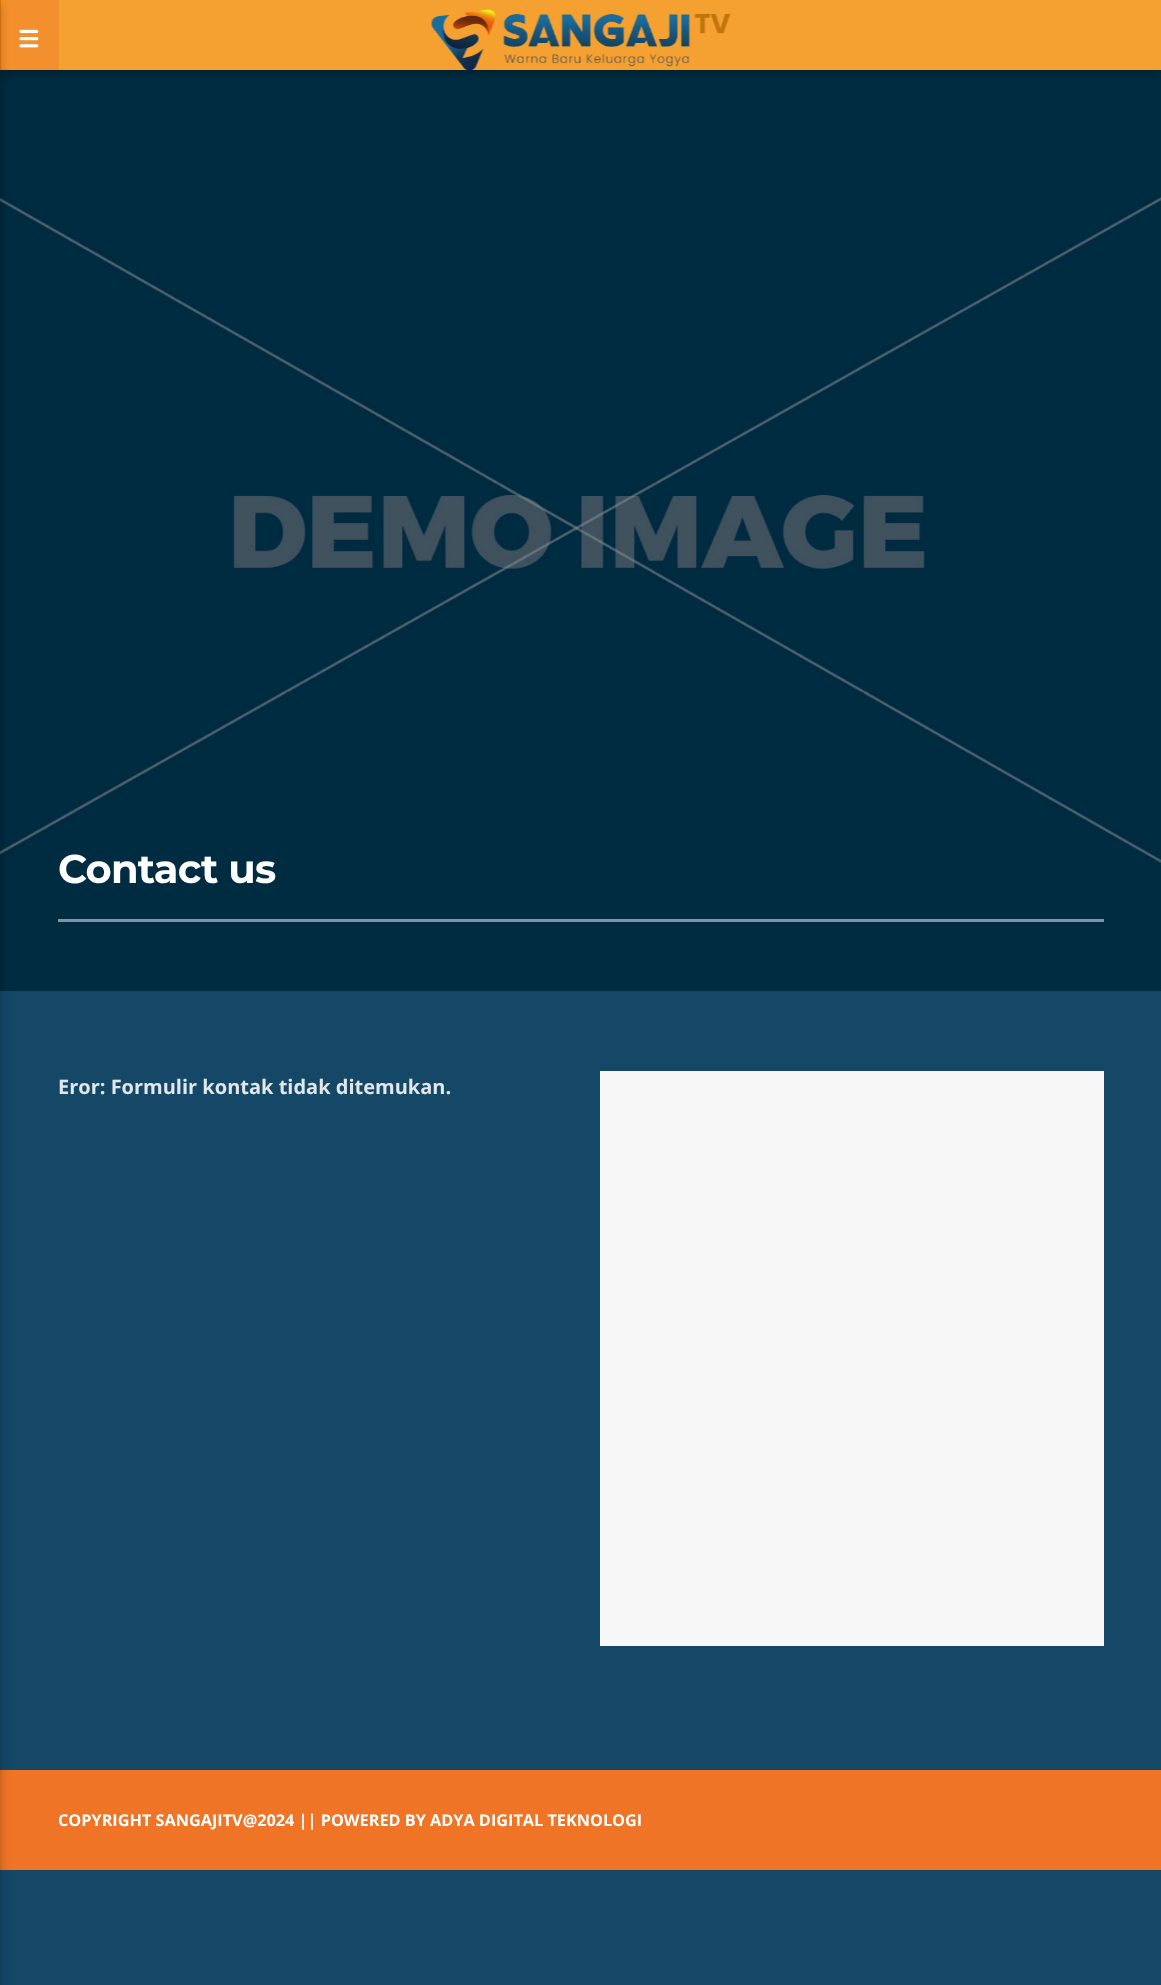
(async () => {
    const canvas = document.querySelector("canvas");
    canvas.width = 1161;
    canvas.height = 1985;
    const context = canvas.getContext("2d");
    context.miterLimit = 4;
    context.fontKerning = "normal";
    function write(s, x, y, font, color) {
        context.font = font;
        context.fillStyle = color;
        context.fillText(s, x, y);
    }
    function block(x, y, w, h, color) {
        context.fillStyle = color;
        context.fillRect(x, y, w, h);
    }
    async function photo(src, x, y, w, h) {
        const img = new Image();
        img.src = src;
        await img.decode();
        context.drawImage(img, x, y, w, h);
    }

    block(0, 0, 1161, 1985, "rgb(21, 71, 102)");
    await photo("media/3.png", 0, 70, 1161, 922);
    context.fillStyle = "rgba(0, 0, 0, 0.12)";
    context.filter = "blur(6px)";
    context.beginPath();
    context.rect(0, 3, 1161, 70);
    context.fill();
    context.filter = "none";
    context.fillStyle = "rgba(0, 0, 0, 0.16)";
    context.filter = "blur(3px)";
    context.beginPath();
    context.rect(0, 3, 1161, 70);
    context.fill();
    context.filter = "none";
    block(59, 0, 1102, 70, "rgb(245, 161, 49)");
    block(0, 0, 1, 70, "rgb(238, 124, 11)");
    block(1, 0, 58, 70, "rgb(243, 144, 45)");
    await photo("media/1.png", 19, 29, 20, 19);
    await photo("media/2.png", 431, 9, 300, 62);
    block(0, 1770, 1161, 100, "rgb(239, 116, 38)");
    context.fillStyle = "rgba(0, 0, 0, 0.12)";
    context.filter = "blur(6px)";
    context.beginPath();
    context.rect(-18, 3, 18, 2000);
    context.fill();
    context.filter = "none";
    context.fillStyle = "rgba(0, 0, 0, 0.16)";
    context.filter = "blur(3px)";
    context.beginPath();
    context.rect(-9, 3, 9, 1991);
    context.fill();
    context.filter = "none";
    context.letterSpacing = "-0.75px";
    write("Contact us", 58, 883, "bold 40px Montserrat", "rgb(255, 255, 255)");
    block(58, 919, 1046, 3, "rgb(128, 149, 160)");
    context.letterSpacing = "0px";
    write("Eror: Formulir kontak tidak ditemukan.", 58, 1094, "bold 20px Open Sans", "rgb(225, 231, 235)");
    block(600, 1071, 504, 575, "rgb(247, 247, 247)");
    write("COPYRIGHT SANGAJITV@2024 || POWERED BY ADYA DIGITAL TEKNOLOGI", 58, 1826, "bold 16.25px Open Sans", "rgb(255, 255, 255)");
})();
